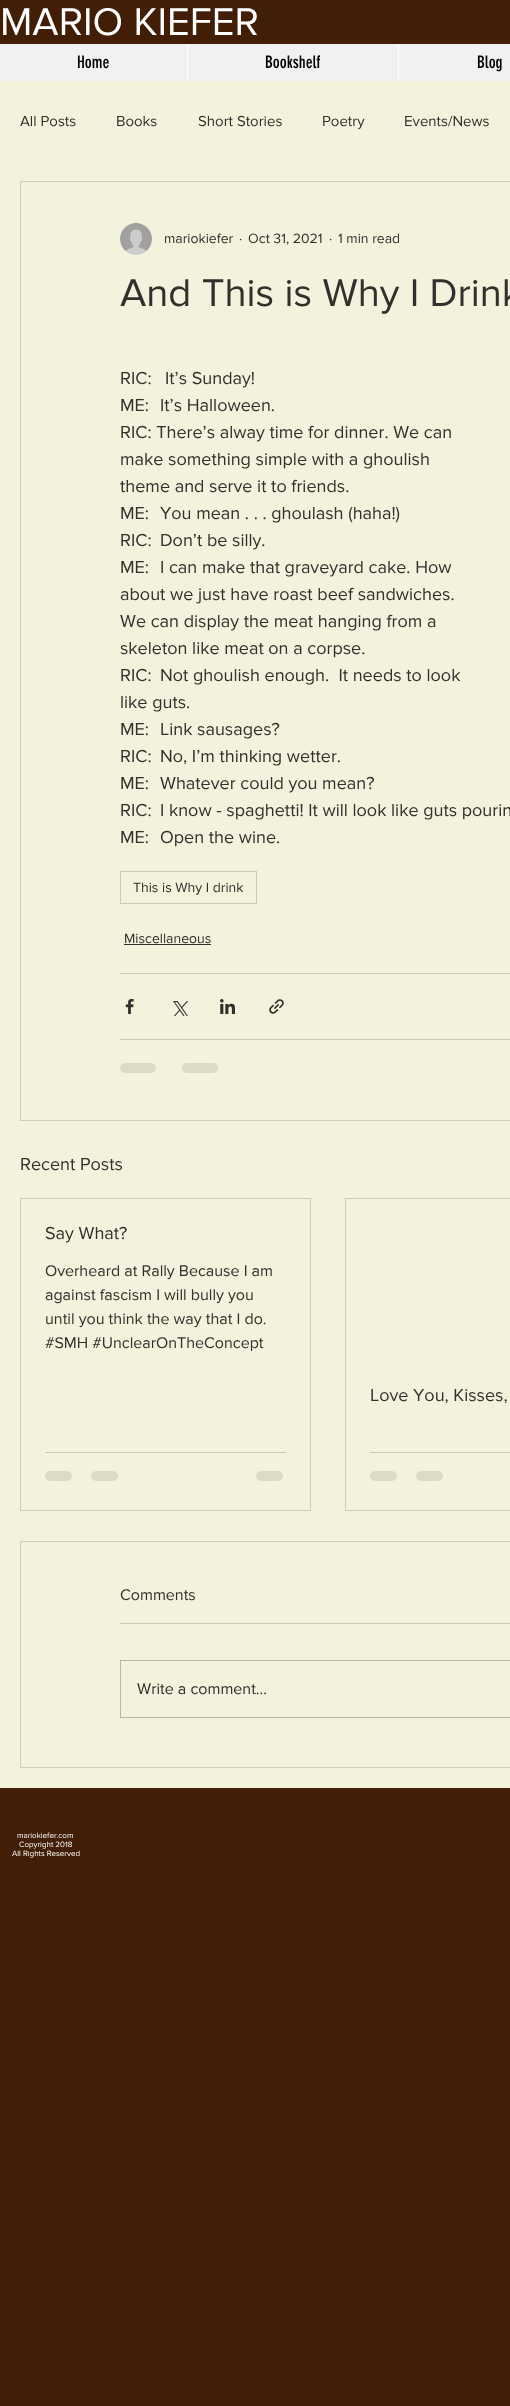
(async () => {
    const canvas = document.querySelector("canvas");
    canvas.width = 510;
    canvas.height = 2406;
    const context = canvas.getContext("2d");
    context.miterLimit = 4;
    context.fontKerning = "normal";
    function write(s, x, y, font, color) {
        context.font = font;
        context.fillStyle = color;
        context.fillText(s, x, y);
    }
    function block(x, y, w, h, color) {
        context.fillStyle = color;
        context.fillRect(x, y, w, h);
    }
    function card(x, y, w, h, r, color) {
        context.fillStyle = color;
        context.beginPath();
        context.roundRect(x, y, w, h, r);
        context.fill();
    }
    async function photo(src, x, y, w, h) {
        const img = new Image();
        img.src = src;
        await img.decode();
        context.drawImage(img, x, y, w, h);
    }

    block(0, 0, 510, 2406, "rgb(66, 30, 6)");
    write("MARIO KIEFER", 0, 35, "40px 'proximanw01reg'", "rgb(255, 255, 255)");
    block(0, 44, 510, 37, "rgb(241, 241, 241)");
    write("Home", 77, 68, "17px 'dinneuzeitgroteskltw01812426'", "rgb(0, 0, 0)");
    block(187, 44, 1, 37, "rgb(255, 255, 255)");
    write("Bookshelf", 265, 68, "17px 'dinneuzeitgroteskltw01812426'", "rgb(0, 0, 0)");
    block(398, 44, 1, 37, "rgb(255, 255, 255)");
    write("Blog", 477, 68, "17px 'dinneuzeitgroteskltw01812426'", "rgb(0, 0, 0)");
    block(0, 81, 510, 1707, "rgb(243, 242, 220)");
    write("All Posts", 20, 126, "15px 'proximanw01reg'", "rgb(49, 48, 44)");
    write("Books", 116, 126, "15px 'proximanw01reg'", "rgb(49, 48, 44)");
    write("Short Stories", 198, 126, "15px 'proximanw01reg'", "rgb(49, 48, 44)");
    write("Poetry", 322, 126, "15px 'proximanw01reg'", "rgb(49, 48, 44)");
    write("Events/News", 404, 126, "15px 'proximanw01reg'", "rgb(49, 48, 44)");
    context.strokeStyle = "rgb(206, 206, 187)";
    context.strokeRect(20.5, 181.5, 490, 939);
    await photo("media/1.png", 120, 223, 32, 32);
    write("mariokiefer", 164, 243, "14px 'proximanw01reg'", "rgb(49, 48, 44)");
    write("·", 239, 243, "14px 'proximanw01reg'", "rgb(49, 48, 44)");
    write("Oct 31, 2021", 248, 243, "14px 'proximanw01reg'", "rgb(49, 48, 44)");
    write("·", 329, 243, "14px 'proximanw01reg'", "rgb(49, 48, 44)");
    write("1 min read", 338, 243, "14px 'proximanw01reg'", "rgb(49, 48, 44)");
    write("And This is Why I Drink", 120, 306, "40px 'proximanw01reg'", "rgb(49, 48, 44)");
    write("RIC:", 120, 384, "18px 'proximanw01reg'", "rgb(49, 48, 44)");
    write("It’s Sunday!", 165, 384, "18px 'proximanw01reg'", "rgb(49, 48, 44)");
    write("ME:", 120, 411, "18px 'proximanw01reg'", "rgb(49, 48, 44)");
    write("It’s Halloween.", 160, 411, "18px 'proximanw01reg'", "rgb(49, 48, 44)");
    write("RIC: There’s alway time for dinner. We can", 120, 438, "18px 'proximanw01reg'", "rgb(49, 48, 44)");
    write("make something simple with a ghoulish", 120, 465, "18px 'proximanw01reg'", "rgb(49, 48, 44)");
    write("theme and serve it to friends.", 120, 492, "18px 'proximanw01reg'", "rgb(49, 48, 44)");
    write("ME:", 120, 519, "18px 'proximanw01reg'", "rgb(49, 48, 44)");
    write("You mean . . . ghoulash (haha!)", 160, 519, "18px 'proximanw01reg'", "rgb(49, 48, 44)");
    write("RIC:", 120, 546, "18px 'proximanw01reg'", "rgb(49, 48, 44)");
    write("Don’t be silly.", 160, 546, "18px 'proximanw01reg'", "rgb(49, 48, 44)");
    write("ME:", 120, 573, "18px 'proximanw01reg'", "rgb(49, 48, 44)");
    write("I can make that graveyard cake. How", 160, 573, "18px 'proximanw01reg'", "rgb(49, 48, 44)");
    write("about we just have roast beef sandwiches.", 120, 600, "18px 'proximanw01reg'", "rgb(49, 48, 44)");
    write("We can display the meat hanging from a", 120, 627, "18px 'proximanw01reg'", "rgb(49, 48, 44)");
    write("skeleton like meat on a corpse.", 120, 654, "18px 'proximanw01reg'", "rgb(49, 48, 44)");
    write("RIC:", 120, 681, "18px 'proximanw01reg'", "rgb(49, 48, 44)");
    write("Not ghoulish enough.  It needs to look", 160, 681, "18px 'proximanw01reg'", "rgb(49, 48, 44)");
    write("like guts.", 120, 708, "18px 'proximanw01reg'", "rgb(49, 48, 44)");
    write("ME:", 120, 735, "18px 'proximanw01reg'", "rgb(49, 48, 44)");
    write("Link sausages?", 160, 735, "18px 'proximanw01reg'", "rgb(49, 48, 44)");
    write("RIC:", 120, 762, "18px 'proximanw01reg'", "rgb(49, 48, 44)");
    write("No, I’m thinking wetter.", 160, 762, "18px 'proximanw01reg'", "rgb(49, 48, 44)");
    write("ME:", 120, 789, "18px 'proximanw01reg'", "rgb(49, 48, 44)");
    write("Whatever could you mean?", 160, 789, "18px 'proximanw01reg'", "rgb(49, 48, 44)");
    write("RIC:", 120, 816, "18px 'proximanw01reg'", "rgb(49, 48, 44)");
    write("I know - spaghetti! It will look like guts pourin", 160, 816, "18px 'proximanw01reg'", "rgb(49, 48, 44)");
    write("ME:", 120, 843, "18px 'proximanw01reg'", "rgb(49, 48, 44)");
    write("Open the wine.", 160, 843, "18px 'proximanw01reg'", "rgb(49, 48, 44)");
    context.strokeStyle = "rgb(204, 203, 185)";
    context.strokeRect(120.5, 871.5, 136, 32);
    write("This is Why I drink", 133, 892, "14px 'proximanw01reg'", "rgb(49, 48, 44)");
    write("Miscellaneous", 124, 943, "14px 'proximanw01reg'", "rgb(49, 48, 44)");
    block(124, 944, 87, 1, "rgb(49, 48, 44)");
    block(120, 973, 390, 1, "rgb(204, 203, 185)");
    await photo("media/2.png", 125, 999, 9, 15);
    await photo("media/3.png", 173, 1001, 15, 15);
    await photo("media/4.png", 220, 999, 15, 15);
    await photo("media/5.png", 269, 999, 15, 15);
    block(120, 1039, 390, 1, "rgb(204, 203, 185)");
    card(120, 1063, 36, 10, 5, "rgb(220, 219, 199)");
    card(182, 1063, 36, 10, 5, "rgb(220, 219, 199)");
    write("Recent Posts", 20, 1170, "18px 'proximanw01reg'", "rgb(49, 48, 44)");
    context.strokeStyle = "rgb(206, 206, 187)";
    context.strokeRect(20.5, 1198.5, 290, 312);
    write("Say What?", 45, 1239, "18px 'proximanw01reg'", "rgb(49, 48, 44)");
    write("Overheard at Rally Because I am", 45, 1276, "16px 'proximanw01reg'", "rgb(49, 48, 44)");
    write("against fascism I will bully you", 45, 1300, "16px 'proximanw01reg'", "rgb(49, 48, 44)");
    write("until you think the way that I do.", 45, 1324, "16px 'proximanw01reg'", "rgb(49, 48, 44)");
    write("#SMH #UnclearOnTheConcept", 45, 1348, "16px 'proximanw01reg'", "rgb(49, 48, 44)");
    block(45, 1452, 241, 1, "rgb(204, 203, 185)");
    card(45, 1471, 27, 10, 5, "rgb(220, 219, 199)");
    card(91, 1471, 27, 10, 5, "rgb(220, 219, 199)");
    card(256, 1471, 27, 10, 5, "rgb(220, 219, 199)");
    context.strokeRect(345.5, 1198.5, 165, 312);
    write("Love You, Kisses,", 370, 1401, "18px 'proximanw01reg'", "rgb(49, 48, 44)");
    block(370, 1452, 140, 1, "rgb(204, 203, 185)");
    card(370, 1471, 27, 10, 5, "rgb(220, 219, 199)");
    card(416, 1471, 27, 10, 5, "rgb(220, 219, 199)");
    context.strokeRect(20.5, 1541.5, 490, 226);
    write("Comments", 120, 1600, "16px 'proximanw01reg'", "rgb(49, 48, 44)");
    block(120, 1623, 390, 1, "rgb(204, 203, 185)");
    context.strokeStyle = "rgb(185, 184, 167)";
    context.strokeRect(120.5, 1660.5, 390, 57);
    write("Write a comment...", 137, 1694, "16px 'proximanw01reg'", "rgb(49, 48, 44)");
    write("mariokiefer.com", 17, 1838, "8px 'proximanw01reg'", "rgb(255, 255, 255)");
    write("Copyright 2018", 19, 1847, "8px 'proximanw01reg'", "rgb(255, 255, 255)");
    write("All Rights Reserved", 12, 1856, "8px 'proximanw01reg'", "rgb(255, 255, 255)");
})();
